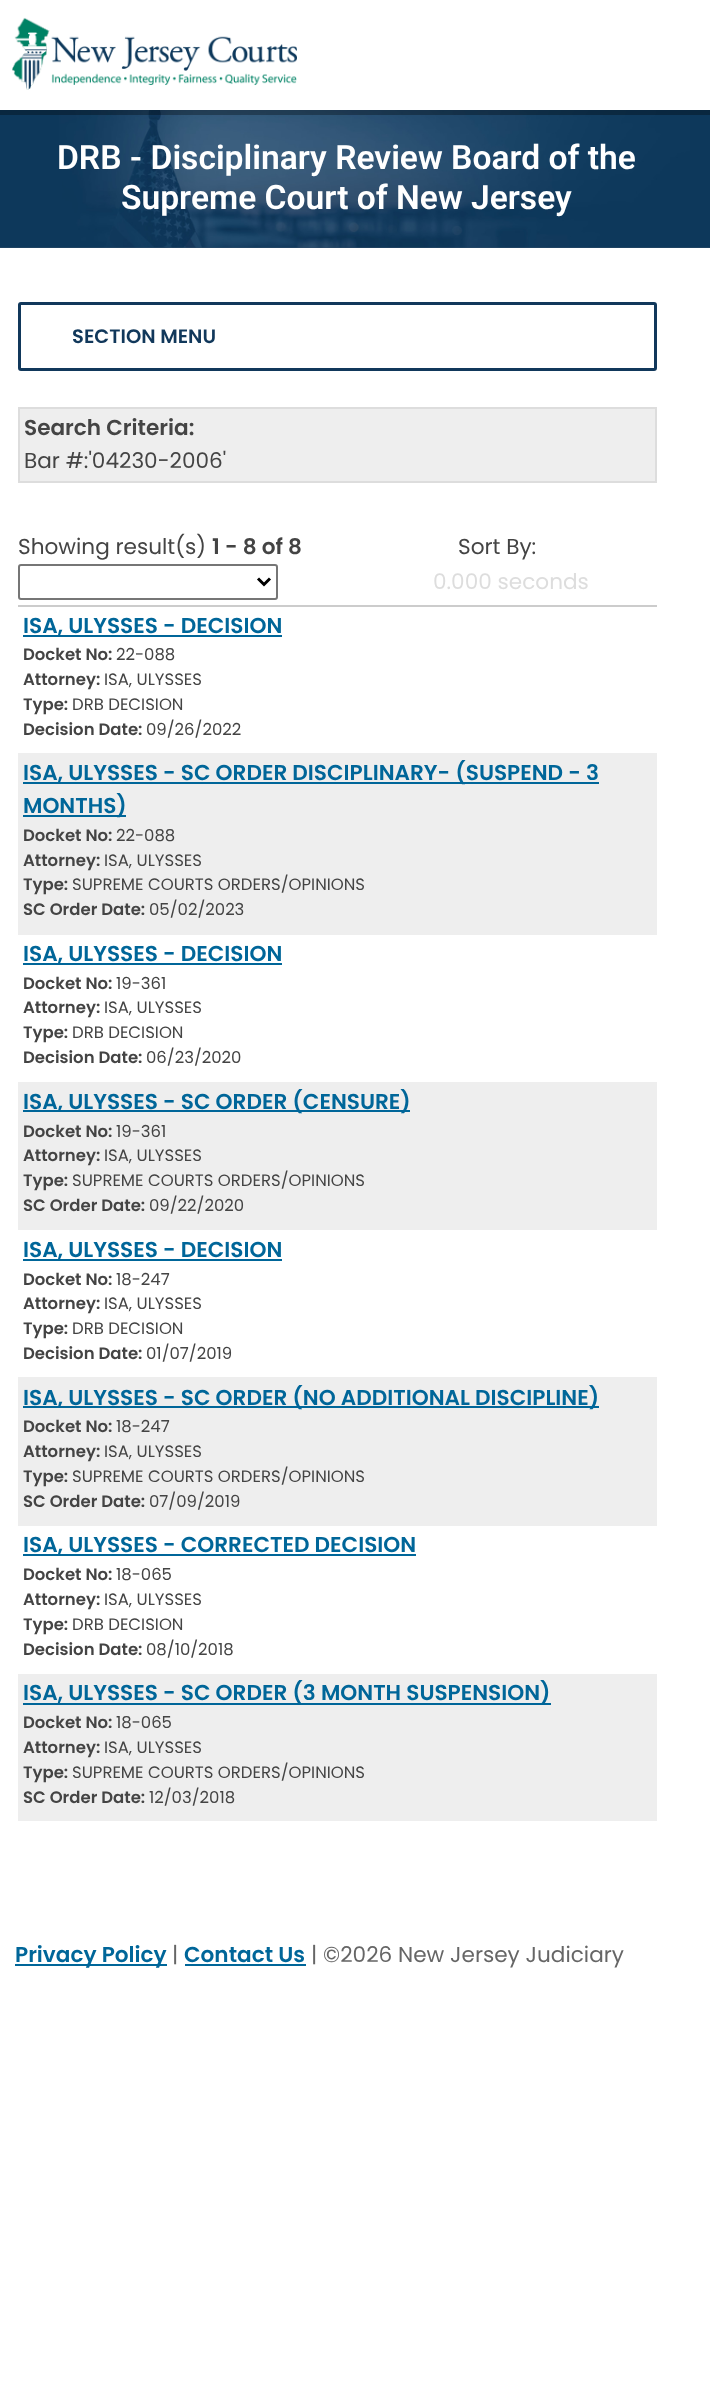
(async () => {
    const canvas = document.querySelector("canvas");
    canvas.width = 710;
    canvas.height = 2407;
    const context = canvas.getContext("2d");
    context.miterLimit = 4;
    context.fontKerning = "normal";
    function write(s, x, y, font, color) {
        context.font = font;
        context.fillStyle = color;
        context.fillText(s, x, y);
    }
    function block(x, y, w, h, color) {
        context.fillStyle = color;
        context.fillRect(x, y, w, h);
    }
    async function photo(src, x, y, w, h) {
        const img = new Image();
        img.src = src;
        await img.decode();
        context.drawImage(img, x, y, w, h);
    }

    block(0, 0, 710, 2407, "rgb(255, 255, 255)");
    await photo("media/1.png", 12, 17, 285, 73);
    block(0, 247, 710, 1, "rgb(48, 79, 107)");
    await photo("media/2.png", 0, 110, 710, 138);
    block(0, 110, 710, 5, "rgba(0, 0, 0, 0.3)");
    write("DRB - Disciplinary Review Board of the", 57, 169, "600 33.6px Roboto", "rgb(255, 255, 255)");
    write("Supreme Court of New Jersey", 121, 209, "600 33.6px Roboto", "rgb(255, 255, 255)");
    context.beginPath();
    context.roundRect(19.5, 303.5, 636, 66, 1.5);
    context.strokeStyle = "rgb(17, 56, 91)";
    context.lineWidth = 3;
    context.stroke();
    write("SECTION MENU", 72, 343, "600 19.5px Poppins", "rgb(17, 56, 91)");
    context.fillStyle = "rgb(238, 238, 238)";
    context.beginPath();
    context.rect(19, 408, 637, 74);
    context.fill();
    context.strokeStyle = "rgb(221, 221, 221)";
    context.lineWidth = 2;
    context.stroke();
    write("Search Criteria:", 24, 435, "600 21.6px Poppins", "rgb(68, 68, 68)");
    write("Bar #:'04230-2006'", 24, 468, "21.6px Poppins", "rgb(68, 68, 68)");
    block(18, 605, 639, 2, "rgb(204, 204, 204)");
    write("Showing result(s)", 18, 554, "21.6px Poppins", "rgb(68, 68, 68)");
    write("1 - 8 of 8", 212, 554, "600 21.6px Poppins", "rgb(68, 68, 68)");
    write("Sort By:", 458, 554, "21.6px Poppins", "rgb(68, 68, 68)");
    context.beginPath();
    context.roundRect(19, 565, 258, 34, 2);
    context.strokeStyle = "rgb(118, 118, 118)";
    context.stroke();
    context.beginPath();
    context.moveTo(258, 578.5);
    context.lineTo(264, 584.5);
    context.lineTo(270, 578.5);
    context.strokeStyle = "rgb(0, 0, 0)";
    context.lineWidth = 3;
    context.stroke();
    write("0.000 seconds", 433, 589, "21.6px Poppins", "rgb(221, 221, 221)");
    block(23, 635, 259, 2, "rgb(0, 102, 153)");
    write("ISA, ULYSSES - DECISION", 23, 633, "600 21.6px Poppins", "rgb(0, 102, 153)");
    write("Docket No:", 23, 660, "600 16.5px Poppins", "rgb(68, 68, 68)");
    write("22-088", 116, 660, "16.5px Poppins", "rgb(68, 68, 68)");
    write("Attorney:", 23, 685, "600 16.5px Poppins", "rgb(68, 68, 68)");
    write("ISA, ULYSSES", 104, 685, "16.5px Poppins", "rgb(68, 68, 68)");
    write("Type:", 23, 710, "600 16.5px Poppins", "rgb(68, 68, 68)");
    write("DRB DECISION", 72, 710, "16.5px Poppins", "rgb(68, 68, 68)");
    write("Decision Date:", 23, 735, "600 16.5px Poppins", "rgb(68, 68, 68)");
    write("09/26/2022", 146, 735, "16.5px Poppins", "rgb(68, 68, 68)");
    block(18, 753, 639, 182, "rgb(238, 238, 238)");
    block(23, 782, 576, 2, "rgb(0, 102, 153)");
    write("ISA, ULYSSES - SC ORDER DISCIPLINARY- (SUSPEND - 3", 23, 780, "600 21.6px Poppins", "rgb(0, 102, 153)");
    block(23, 815, 103, 2, "rgb(0, 102, 153)");
    write("MONTHS)", 23, 813, "600 21.6px Poppins", "rgb(0, 102, 153)");
    write("Docket No:", 23, 841, "600 16.5px Poppins", "rgb(68, 68, 68)");
    write("22-088", 116, 841, "16.5px Poppins", "rgb(68, 68, 68)");
    write("Attorney:", 23, 866, "600 16.5px Poppins", "rgb(68, 68, 68)");
    write("ISA, ULYSSES", 104, 866, "16.5px Poppins", "rgb(68, 68, 68)");
    write("Type:", 23, 890, "600 16.5px Poppins", "rgb(68, 68, 68)");
    write("SUPREME COURTS ORDERS/OPINIONS", 72, 890, "16.5px Poppins", "rgb(68, 68, 68)");
    write("SC Order Date:", 23, 915, "600 16.5px Poppins", "rgb(68, 68, 68)");
    write("05/02/2023", 149, 915, "16.5px Poppins", "rgb(68, 68, 68)");
    block(23, 963, 259, 2, "rgb(0, 102, 153)");
    write("ISA, ULYSSES - DECISION", 23, 961, "600 21.6px Poppins", "rgb(0, 102, 153)");
    write("Docket No:", 23, 989, "600 16.5px Poppins", "rgb(68, 68, 68)");
    write("19-361", 116, 989, "16.5px Poppins", "rgb(68, 68, 68)");
    write("Attorney:", 23, 1013, "600 16.5px Poppins", "rgb(68, 68, 68)");
    write("ISA, ULYSSES", 104, 1013, "16.5px Poppins", "rgb(68, 68, 68)");
    write("Type:", 23, 1038, "600 16.5px Poppins", "rgb(68, 68, 68)");
    write("DRB DECISION", 72, 1038, "16.5px Poppins", "rgb(68, 68, 68)");
    write("Decision Date:", 23, 1063, "600 16.5px Poppins", "rgb(68, 68, 68)");
    write("06/23/2020", 146, 1063, "16.5px Poppins", "rgb(68, 68, 68)");
    block(18, 1082, 639, 148, "rgb(238, 238, 238)");
    block(23, 1110, 387, 2, "rgb(0, 102, 153)");
    write("ISA, ULYSSES - SC ORDER (CENSURE)", 23, 1109, "600 21.6px Poppins", "rgb(0, 102, 153)");
    write("Docket No:", 23, 1137, "600 16.5px Poppins", "rgb(68, 68, 68)");
    write("19-361", 116, 1137, "16.5px Poppins", "rgb(68, 68, 68)");
    write("Attorney:", 23, 1161, "600 16.5px Poppins", "rgb(68, 68, 68)");
    write("ISA, ULYSSES", 104, 1161, "16.5px Poppins", "rgb(68, 68, 68)");
    write("Type:", 23, 1186, "600 16.5px Poppins", "rgb(68, 68, 68)");
    write("SUPREME COURTS ORDERS/OPINIONS", 72, 1186, "16.5px Poppins", "rgb(68, 68, 68)");
    write("SC Order Date:", 23, 1211, "600 16.5px Poppins", "rgb(68, 68, 68)");
    write("09/22/2020", 149, 1211, "16.5px Poppins", "rgb(68, 68, 68)");
    block(23, 1259, 259, 2, "rgb(0, 102, 153)");
    write("ISA, ULYSSES - DECISION", 23, 1257, "600 21.6px Poppins", "rgb(0, 102, 153)");
    write("Docket No:", 23, 1285, "600 16.5px Poppins", "rgb(68, 68, 68)");
    write("18-247", 116, 1285, "16.5px Poppins", "rgb(68, 68, 68)");
    write("Attorney:", 23, 1309, "600 16.5px Poppins", "rgb(68, 68, 68)");
    write("ISA, ULYSSES", 104, 1309, "16.5px Poppins", "rgb(68, 68, 68)");
    write("Type:", 23, 1334, "600 16.5px Poppins", "rgb(68, 68, 68)");
    write("DRB DECISION", 72, 1334, "16.5px Poppins", "rgb(68, 68, 68)");
    write("Decision Date:", 23, 1359, "600 16.5px Poppins", "rgb(68, 68, 68)");
    write("01/07/2019", 146, 1359, "16.5px Poppins", "rgb(68, 68, 68)");
    block(18, 1377, 639, 149, "rgb(238, 238, 238)");
    block(23, 1406, 576, 2, "rgb(0, 102, 153)");
    write("ISA, ULYSSES - SC ORDER (NO ADDITIONAL DISCIPLINE)", 23, 1405, "600 21.6px Poppins", "rgb(0, 102, 153)");
    write("Docket No:", 23, 1432, "600 16.5px Poppins", "rgb(68, 68, 68)");
    write("18-247", 116, 1432, "16.5px Poppins", "rgb(68, 68, 68)");
    write("Attorney:", 23, 1457, "600 16.5px Poppins", "rgb(68, 68, 68)");
    write("ISA, ULYSSES", 104, 1457, "16.5px Poppins", "rgb(68, 68, 68)");
    write("Type:", 23, 1482, "600 16.5px Poppins", "rgb(68, 68, 68)");
    write("SUPREME COURTS ORDERS/OPINIONS", 72, 1482, "16.5px Poppins", "rgb(68, 68, 68)");
    write("SC Order Date:", 23, 1507, "600 16.5px Poppins", "rgb(68, 68, 68)");
    write("07/09/2019", 149, 1507, "16.5px Poppins", "rgb(68, 68, 68)");
    block(23, 1554, 393, 2, "rgb(0, 102, 153)");
    write("ISA, ULYSSES - CORRECTED DECISION", 23, 1552, "600 21.6px Poppins", "rgb(0, 102, 153)");
    write("Docket No:", 23, 1580, "600 16.5px Poppins", "rgb(68, 68, 68)");
    write("18-065", 116, 1580, "16.5px Poppins", "rgb(68, 68, 68)");
    write("Attorney:", 23, 1605, "600 16.5px Poppins", "rgb(68, 68, 68)");
    write("ISA, ULYSSES", 104, 1605, "16.5px Poppins", "rgb(68, 68, 68)");
    write("Type:", 23, 1630, "600 16.5px Poppins", "rgb(68, 68, 68)");
    write("DRB DECISION", 72, 1630, "16.5px Poppins", "rgb(68, 68, 68)");
    write("Decision Date:", 23, 1655, "600 16.5px Poppins", "rgb(68, 68, 68)");
    write("08/10/2018", 146, 1655, "16.5px Poppins", "rgb(68, 68, 68)");
    block(18, 1674, 639, 147, "rgb(238, 238, 238)");
    block(23, 1703, 528, 2, "rgb(0, 102, 153)");
    write("ISA, ULYSSES - SC ORDER (3 MONTH SUSPENSION)", 23, 1700, "600 21.6px Poppins", "rgb(0, 102, 153)");
    write("Docket No:", 23, 1728, "600 16.5px Poppins", "rgb(68, 68, 68)");
    write("18-065", 116, 1728, "16.5px Poppins", "rgb(68, 68, 68)");
    write("Attorney:", 23, 1753, "600 16.5px Poppins", "rgb(68, 68, 68)");
    write("ISA, ULYSSES", 104, 1753, "16.5px Poppins", "rgb(68, 68, 68)");
    write("Type:", 23, 1778, "600 16.5px Poppins", "rgb(68, 68, 68)");
    write("SUPREME COURTS ORDERS/OPINIONS", 72, 1778, "16.5px Poppins", "rgb(68, 68, 68)");
    write("SC Order Date:", 23, 1803, "600 16.5px Poppins", "rgb(68, 68, 68)");
    write("12/03/2018", 149, 1803, "16.5px Poppins", "rgb(68, 68, 68)");
    block(15, 1964, 152, 2, "rgb(0, 102, 153)");
    write("Privacy Policy", 15, 1962, "600 21.6px Poppins", "rgb(0, 102, 153)");
    write("|", 172, 1962, "21.6px Poppins", "rgb(102, 102, 102)");
    write("Contact Us", 184, 1962, "600 21.6px Poppins", "rgb(0, 102, 153)");
    block(185, 1964, 121, 2, "rgb(0, 102, 153)");
    write("| ©2026 New Jersey Judiciary", 311, 1962, "21.6px Poppins", "rgb(102, 102, 102)");
})();
